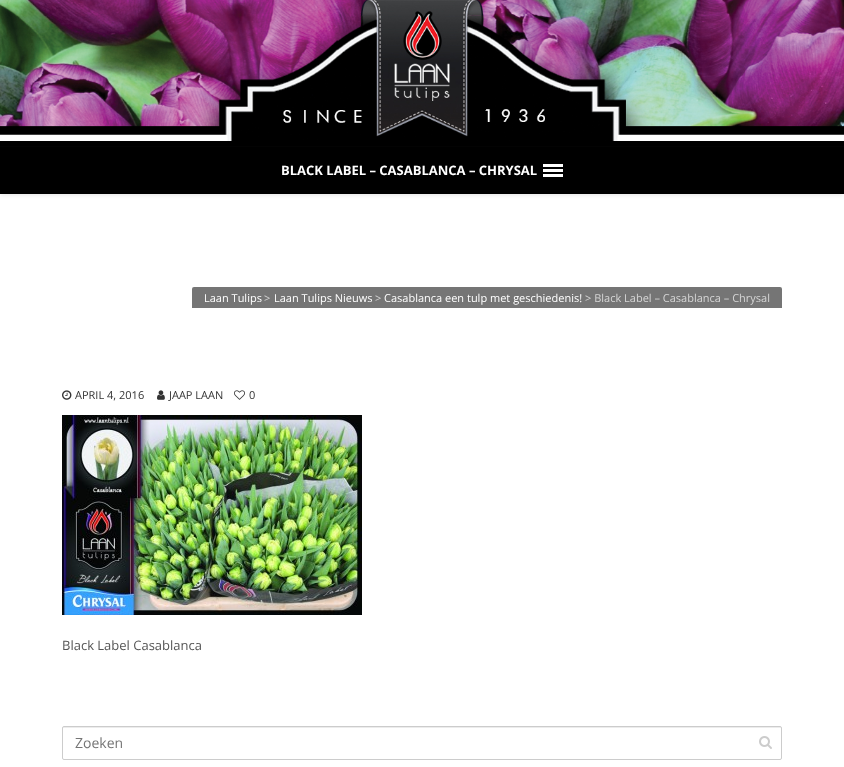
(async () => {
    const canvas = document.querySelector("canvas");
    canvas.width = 844;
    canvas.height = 767;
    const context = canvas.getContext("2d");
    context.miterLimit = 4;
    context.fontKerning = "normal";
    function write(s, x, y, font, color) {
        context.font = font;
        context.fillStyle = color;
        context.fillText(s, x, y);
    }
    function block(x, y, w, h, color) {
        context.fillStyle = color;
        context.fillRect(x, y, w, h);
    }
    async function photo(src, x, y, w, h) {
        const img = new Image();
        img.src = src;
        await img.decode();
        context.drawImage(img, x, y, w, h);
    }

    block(0, 0, 844, 767, "rgb(255, 255, 255)");
    block(0, 141, 844, 5, "rgb(0, 0, 0)");
    await photo("media/1.png", 0, 0, 844, 141);
    block(0, 147, 844, 47, "rgb(0, 0, 0)");
    block(0, 146, 844, 1, "rgb(3, 3, 3)");
    write("BLACK LABEL – CASABLANCA – CHRYSAL", 281, 175, "bold 13px Open Sans", "rgb(255, 255, 255)");
    block(543, 164, 20, 3, "rgb(255, 255, 255)");
    block(543, 169, 20, 3, "rgb(255, 255, 255)");
    block(543, 174, 20, 3, "rgb(255, 255, 255)");
    context.save();
    context.beginPath();
    context.rect(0, 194, 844, 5);
    context.clip();
    context.fillStyle = "rgba(0, 0, 0, 0.1)";
    context.filter = "blur(2px)";
    context.beginPath();
    context.roundRect(0, 190, 844, 5, 2.5);
    context.fill();
    context.filter = "none";
    context.restore();
    context.fillStyle = "rgb(117, 117, 117)";
    context.beginPath();
    context.roundRect(192, 287, 590, 21, [2, 2, 0, 0]);
    context.fill();
    write("Laan Tulips", 204, 302, "11px Open Sans", "rgb(255, 255, 255)");
    write(">", 264, 302, "11px Open Sans", "rgb(214, 214, 214)");
    write("Laan Tulips Nieuws", 274, 302, "11px Open Sans", "rgb(255, 255, 255)");
    write(">", 375, 302, "11px Open Sans", "rgb(214, 214, 214)");
    write("Casablanca een tulp met geschiedenis!", 384, 302, "11px Open Sans", "rgb(255, 255, 255)");
    write("> Black Label – Casablanca – Chrysal", 585, 302, "11px Open Sans", "rgb(214, 214, 214)");
    await photo("media/2.png", 62, 390, 10, 10);
    write("APRIL 4, 2016", 75, 399, "11px Open Sans", "rgb(51, 51, 51)");
    await photo("media/3.png", 157, 390, 8, 10);
    write("JAAP LAAN", 169, 399, "11px Open Sans", "rgb(51, 51, 51)");
    await photo("media/4.png", 234, 390, 11, 10);
    write("0", 249, 399, "11px Open Sans", "rgb(51, 51, 51)");
    await photo("media/5.png", 62, 415, 300, 200);
    write("Black Label Casablanca", 62, 650, "13px Open Sans", "rgb(85, 85, 85)");
    context.fillStyle = "rgb(236, 236, 236)";
    context.beginPath();
    context.moveTo(64, 728);
    context.lineTo(780, 728);
    context.bezierCurveTo(781, 728, 781, 728, 781, 729);
    context.bezierCurveTo(781, 728, 781, 727, 780, 727);
    context.lineTo(64, 727);
    context.bezierCurveTo(63, 727, 63, 728, 63, 729);
    context.bezierCurveTo(63, 728, 63, 728, 64, 728);
    context.closePath();
    context.fill();
    context.beginPath();
    context.roundRect(62.5, 726.5, 719, 33, 1.5);
    context.strokeStyle = "rgb(204, 204, 204)";
    context.stroke();
    write("Zoeken", 75, 748, "14px Open Sans", "rgb(117, 117, 117)");
    await photo("media/6.png", 759, 736, 13, 13);
})();
